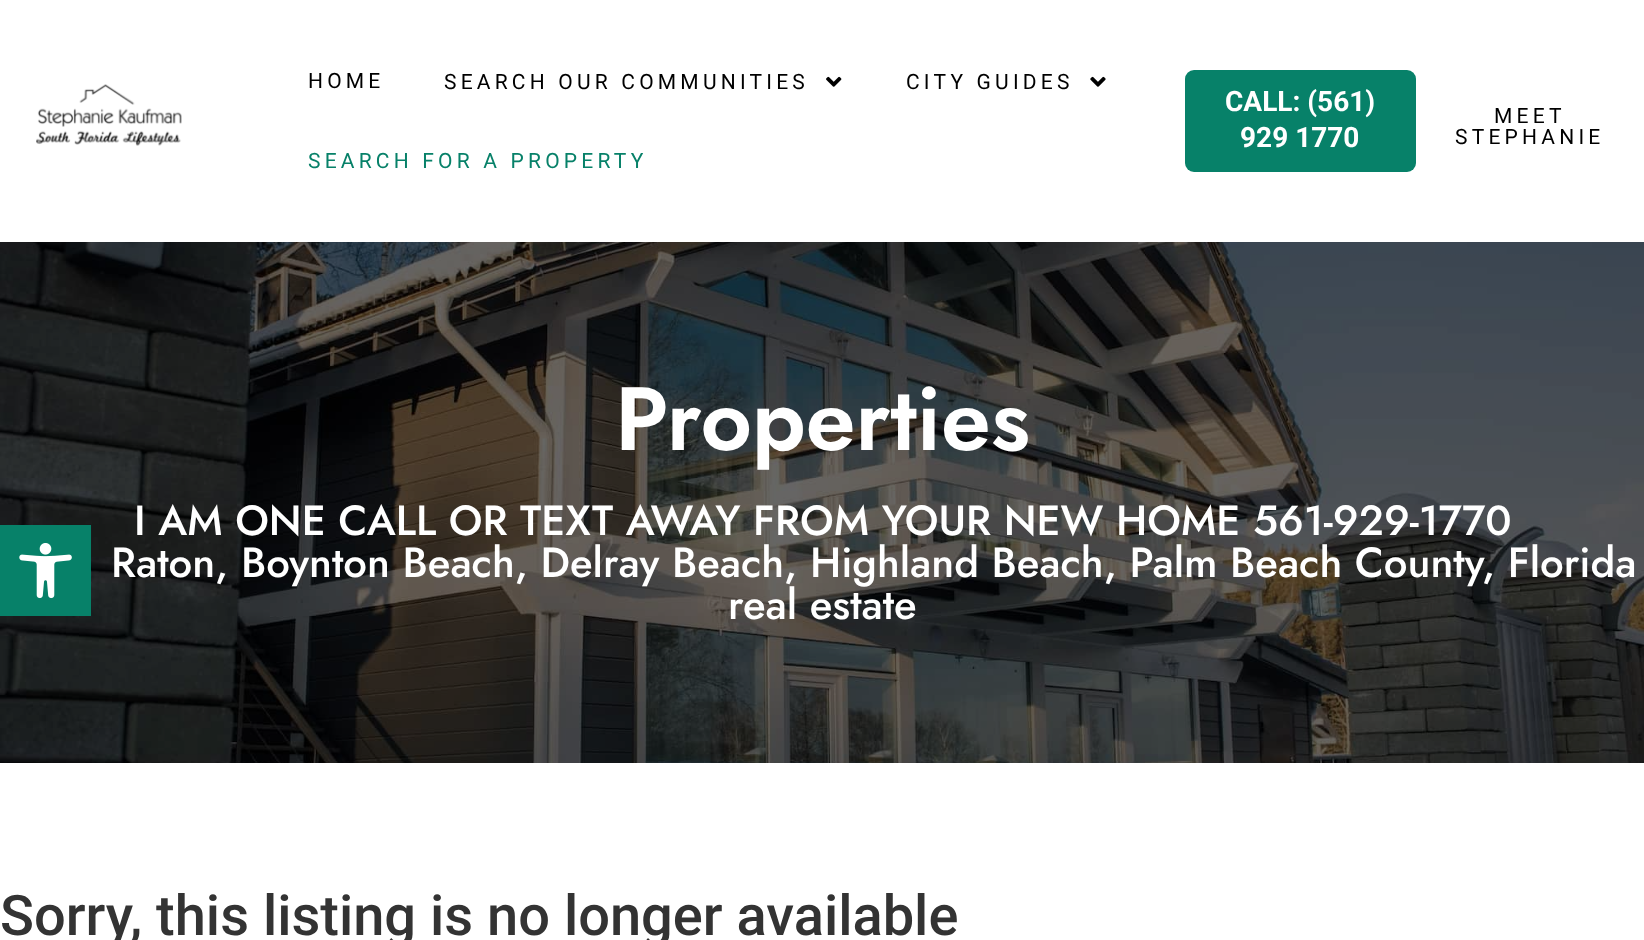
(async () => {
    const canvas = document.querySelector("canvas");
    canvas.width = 1644;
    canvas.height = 940;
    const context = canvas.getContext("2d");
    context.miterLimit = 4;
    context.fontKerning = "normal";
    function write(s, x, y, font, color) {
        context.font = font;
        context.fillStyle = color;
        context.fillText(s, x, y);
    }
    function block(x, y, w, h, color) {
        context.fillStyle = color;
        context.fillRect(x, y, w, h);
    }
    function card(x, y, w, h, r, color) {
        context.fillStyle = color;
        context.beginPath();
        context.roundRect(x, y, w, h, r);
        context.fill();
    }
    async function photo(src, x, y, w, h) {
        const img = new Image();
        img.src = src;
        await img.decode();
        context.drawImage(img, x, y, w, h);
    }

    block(0, 0, 1644, 940, "rgb(255, 255, 255)");
    await photo("media/1.png", 36, 84, 146, 62);
    context.letterSpacing = "4.2px";
    write("HOME", 308, 88, "21px Roboto", "rgb(0, 0, 0)");
    write("SEARCH OUR COMMUNITIES", 444, 89, "21px Roboto", "rgb(0, 0, 0)");
    await photo("media/2.png", 826, 76, 16, 11);
    write("CITY GUIDES", 906, 89, "21px Roboto", "rgb(0, 0, 0)");
    await photo("media/3.png", 1090, 76, 16, 11);
    write("SEARCH FOR A PROPERTY", 308, 168, "21px Roboto", "rgb(7, 129, 105)");
    card(1185, 70, 231, 102, 9, "rgb(7, 129, 105)");
    context.letterSpacing = "0px";
    write("CALL: (561)", 1225, 111, "bold 28px Roboto", "rgb(255, 255, 255)");
    write("929 1770", 1240, 147, "bold 28px Roboto", "rgb(255, 255, 255)");
    context.letterSpacing = "4.2px";
    write("MEET", 1494, 123, "21px Roboto", "rgb(0, 0, 0)");
    write("STEPHANIE", 1455, 144, "21px Roboto", "rgb(0, 0, 0)");
    await photo("media/4.png", 0, 242, 1644, 521);
    context.letterSpacing = "0px";
    write("Properties", 615, 450, "600 89.5px Jost", "rgb(255, 255, 255)");
    write("I AM ONE CALL OR TEXT AWAY FROM YOUR NEW HOME 561-929-1770", 134, 535, "500 42px Jost", "rgb(255, 255, 255)");
    write("Raton, Boynton Beach, Delray Beach, Highland Beach, Palm Beach County, Florida", 111, 577, "500 42px Jost", "rgb(255, 255, 255)");
    write("real estate", 728, 619, "500 42px Jost", "rgb(255, 255, 255)");
    write("Sorry, this listing is no longer available", 0, 935, "500 56px Roboto", "rgb(51, 51, 51)");
    block(0, 525, 91, 91, "rgb(7, 129, 105)");
    await photo("media/5.png", 19, 543, 53, 56);
})();
